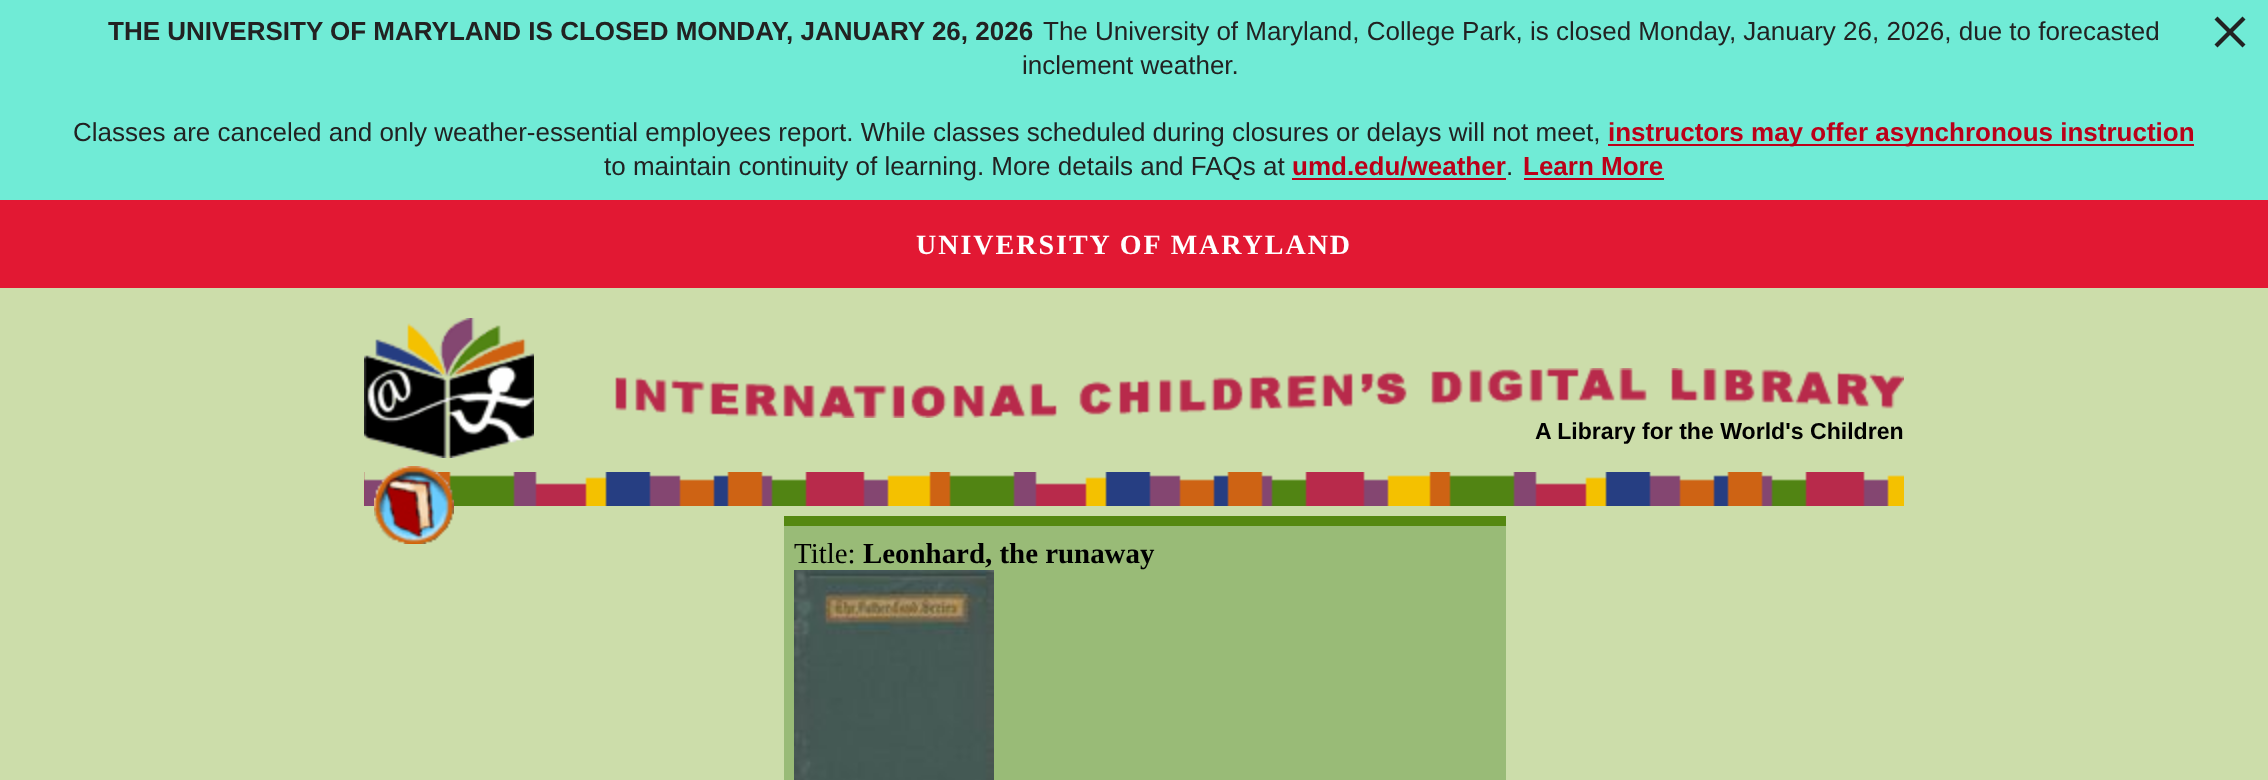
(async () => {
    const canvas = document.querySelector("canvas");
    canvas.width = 2268;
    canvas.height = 780;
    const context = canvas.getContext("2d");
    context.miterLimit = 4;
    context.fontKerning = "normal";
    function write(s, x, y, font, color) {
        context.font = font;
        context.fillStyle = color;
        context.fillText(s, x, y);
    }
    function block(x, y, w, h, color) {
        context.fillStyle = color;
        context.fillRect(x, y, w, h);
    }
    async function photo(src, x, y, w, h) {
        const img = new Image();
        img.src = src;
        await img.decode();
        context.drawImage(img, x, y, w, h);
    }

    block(0, 0, 2268, 780, "rgb(204, 221, 170)");
    block(0, 0, 2268, 200, "rgb(112, 235, 214)");
    write("THE UNIVERSITY OF MARYLAND IS CLOSED MONDAY, JANUARY 26, 2026", 108, 40, "bold 26px Liberation Sans", "rgb(34, 34, 34)");
    write("The University of Maryland, College Park, is closed Monday, January 26, 2026, due to forecasted", 1043, 40, "26px Liberation Sans", "rgb(34, 34, 34)");
    context.beginPath();
    context.moveTo(2245.5, 44.5);
    context.lineTo(2242.5, 47.5);
    context.lineTo(2214.5, 19.5);
    context.lineTo(2217.5, 16.5);
    context.closePath();
    context.fill();
    context.beginPath();
    context.moveTo(2242.5, 16.5);
    context.lineTo(2245.5, 19.5);
    context.lineTo(2217.5, 47.5);
    context.lineTo(2214.5, 44.5);
    context.closePath();
    context.fill();
    write("inclement weather.", 1022, 74, "26px Liberation Sans", "rgb(34, 34, 34)");
    write("Classes are canceled and only weather-essential employees report. While classes scheduled during closures or delays will not meet,", 73, 141, "26px Liberation Sans", "rgb(34, 34, 34)");
    block(1608, 144, 586, 2, "rgb(187, 0, 25)");
    write("instructors may offer asynchronous instruction", 1608, 141, "bold 26px Liberation Sans", "rgb(187, 0, 25)");
    write("to maintain continuity of learning. More details and FAQs at", 604, 175, "26px Liberation Sans", "rgb(34, 34, 34)");
    write("umd.edu/weather", 1292, 175, "bold 26px Liberation Sans", "rgb(187, 0, 25)");
    write(".", 1506, 175, "26px Liberation Sans", "rgb(34, 34, 34)");
    block(1292, 178, 214, 2, "rgb(187, 0, 25)");
    block(1524, 178, 140, 2, "rgb(187, 0, 25)");
    write("Learn More", 1523, 175, "bold 26px Liberation Sans", "rgb(187, 0, 25)");
    block(0, 200, 2268, 88, "rgb(226, 24, 51)");
    context.letterSpacing = "2px";
    write("UNIVERSITY OF MARYLAND", 916, 254, "bold 28px Liberation Serif", "rgb(255, 255, 255)");
    await photo("media/1.png", 364, 318, 170, 140);
    await photo("media/2.png", 615, 368, 1289, 50);
    context.letterSpacing = "0px";
    write("A Library for the World's Children", 1535, 439, "bold 23.1px Liberation Sans", "rgb(0, 0, 0)");
    await photo("media/4.png", 364, 472, 1540, 34);
    await photo("media/3.png", 374, 466, 80, 78);
    block(784, 526, 722, 254, "rgb(153, 187, 119)");
    block(784, 516, 722, 10, "rgb(85, 136, 17)");
    write("Title:", 794, 563, "28.9px Liberation Serif", "rgb(0, 0, 0)");
    write("Leonhard, the runaway", 863, 563, "bold 28.9px Liberation Serif", "rgb(0, 0, 0)");
    await photo("media/5.png", 794, 570, 200, 210);
})();
